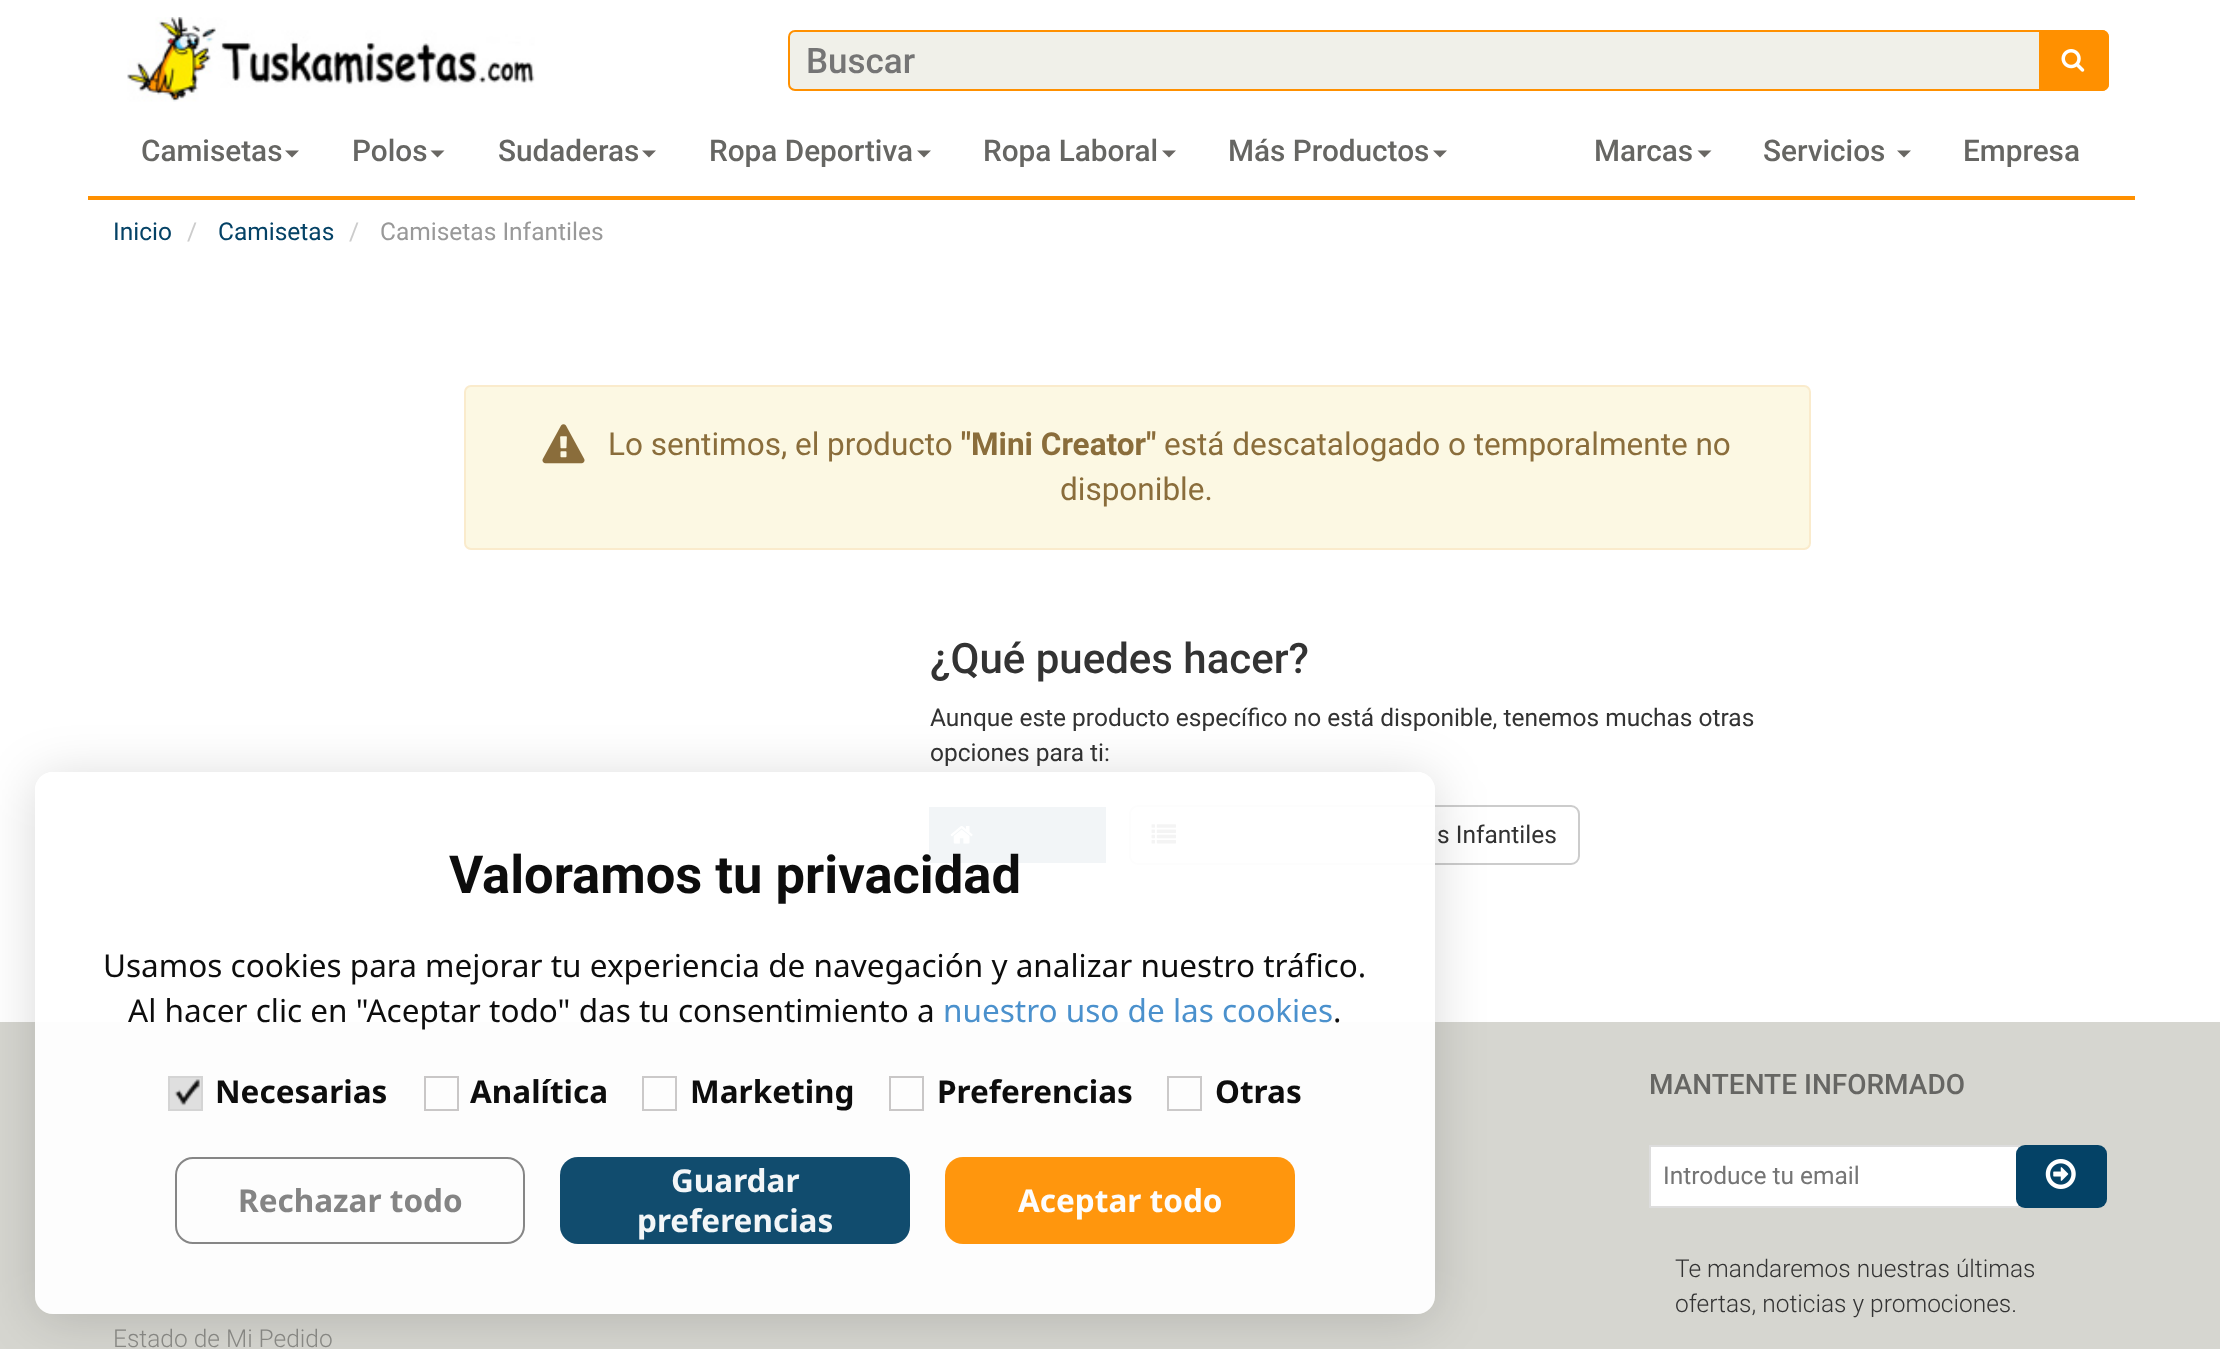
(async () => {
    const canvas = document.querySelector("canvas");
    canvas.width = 2220;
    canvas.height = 1349;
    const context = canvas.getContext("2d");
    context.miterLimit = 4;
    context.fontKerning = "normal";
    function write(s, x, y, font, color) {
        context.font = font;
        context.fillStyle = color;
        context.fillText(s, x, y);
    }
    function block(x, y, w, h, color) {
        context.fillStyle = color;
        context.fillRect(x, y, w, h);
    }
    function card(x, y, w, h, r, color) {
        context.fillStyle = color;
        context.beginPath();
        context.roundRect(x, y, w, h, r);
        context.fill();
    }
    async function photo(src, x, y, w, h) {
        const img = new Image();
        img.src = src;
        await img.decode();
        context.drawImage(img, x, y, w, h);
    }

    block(0, 0, 2220, 1349, "rgb(255, 255, 255)");
    block(88, 196, 2047, 4, "rgb(255, 144, 0)");
    await photo("media/1.png", 127, 17, 408, 85);
    context.fillStyle = "rgb(240, 240, 233)";
    context.beginPath();
    context.roundRect(789, 31, 1319, 59, 6);
    context.fill();
    context.strokeStyle = "rgb(255, 144, 0)";
    context.lineWidth = 2;
    context.stroke();
    write("Buscar", 806, 73, "500 35px Roboto", "rgb(117, 117, 117)");
    context.fillStyle = "rgb(255, 144, 0)";
    context.beginPath();
    context.roundRect(2039, 30, 70, 61, [0, 7, 7, 0]);
    context.fill();
    await photo("media/2.png", 2061, 49, 24, 23);
    write("Camisetas", 141, 161, "500 29.75px Roboto", "rgb(102, 102, 99)");
    context.fillStyle = "rgb(105, 103, 99)";
    context.beginPath();
    context.moveTo(285, 150.5);
    context.lineTo(299, 150.5);
    context.lineTo(292, 157.5);
    context.closePath();
    context.fill();
    write("Polos", 352, 161, "500 29.75px Roboto", "rgb(102, 102, 99)");
    context.fillStyle = "rgb(105, 103, 99)";
    context.beginPath();
    context.moveTo(430.5, 150.5);
    context.lineTo(444.5, 150.5);
    context.lineTo(437.5, 157.5);
    context.closePath();
    context.fill();
    write("Sudaderas", 498, 161, "500 29.75px Roboto", "rgb(102, 102, 99)");
    context.fillStyle = "rgb(105, 103, 99)";
    context.beginPath();
    context.moveTo(642, 150.5);
    context.lineTo(656, 150.5);
    context.lineTo(649, 157.5);
    context.closePath();
    context.fill();
    write("Ropa Deportiva", 709, 161, "500 29.75px Roboto", "rgb(102, 102, 99)");
    context.fillStyle = "rgb(105, 103, 99)";
    context.beginPath();
    context.moveTo(917, 150.5);
    context.lineTo(931, 150.5);
    context.lineTo(924, 157.5);
    context.closePath();
    context.fill();
    write("Ropa Laboral", 983, 161, "500 29.75px Roboto", "rgb(102, 102, 99)");
    context.fillStyle = "rgb(105, 103, 99)";
    context.beginPath();
    context.moveTo(1162, 150.5);
    context.lineTo(1176, 150.5);
    context.lineTo(1169, 157.5);
    context.closePath();
    context.fill();
    write("Más Productos", 1228, 161, "500 29.75px Roboto", "rgb(102, 102, 99)");
    context.fillStyle = "rgb(105, 103, 99)";
    context.beginPath();
    context.moveTo(1433, 150.5);
    context.lineTo(1447, 150.5);
    context.lineTo(1440, 157.5);
    context.closePath();
    context.fill();
    write("Marcas", 1594, 161, "500 29.75px Roboto", "rgb(102, 102, 99)");
    context.fillStyle = "rgb(105, 103, 99)";
    context.beginPath();
    context.moveTo(1697.5, 150.5);
    context.lineTo(1711.5, 150.5);
    context.lineTo(1704.5, 157.5);
    context.closePath();
    context.fill();
    write("Servicios", 1763, 161, "500 29.75px Roboto", "rgb(102, 102, 99)");
    context.fillStyle = "rgb(105, 103, 99)";
    context.beginPath();
    context.moveTo(1897, 150.5);
    context.lineTo(1911, 150.5);
    context.lineTo(1904, 157.5);
    context.closePath();
    context.fill();
    write("Empresa", 1963, 161, "500 29.75px Roboto", "rgb(102, 102, 99)");
    write("Inicio", 113, 240, "24.5px Roboto", "rgb(4, 66, 102)");
    write("/", 187, 240, "24.5px Roboto", "rgb(204, 204, 204)");
    write("Camisetas", 218, 240, "24.5px Roboto", "rgb(4, 66, 102)");
    write("/", 349, 240, "24.5px Roboto", "rgb(204, 204, 204)");
    write("Camisetas Infantiles", 380, 240, "24.5px Roboto", "rgb(153, 153, 153)");
    context.fillStyle = "rgb(252, 248, 227)";
    context.beginPath();
    context.roundRect(465, 386, 1345, 163, 6);
    context.fill();
    context.strokeStyle = "rgb(250, 235, 204)";
    context.stroke();
    await photo("media/3.png", 542, 424, 43, 40);
    write("Lo sentimos, el producto", 608, 455, "31.5px Roboto", "rgb(138, 109, 59)");
    write("\"Mini Creator\"", 961, 455, "bold 31.5px Roboto", "rgb(138, 109, 59)");
    write("está descatalogado o temporalmente no", 1164, 455, "31.5px Roboto", "rgb(138, 109, 59)");
    write("disponible.", 1060, 500, "31.5px Roboto", "rgb(138, 109, 59)");
    write("¿Qué puedes hacer?", 930, 673, "500 42px Roboto", "rgb(51, 51, 51)");
    write("Aunque este producto específico no está disponible, tenemos muchas otras", 930, 726, "24.5px Roboto", "rgb(51, 51, 51)");
    write("opciones para ti:", 930, 761, "24.5px Roboto", "rgb(51, 51, 51)");
    block(929, 807, 177, 56, "rgb(4, 66, 102)");
    await photo("media/4.png", 950, 826, 23, 18);
    context.beginPath();
    context.roundRect(1130, 806, 449, 58, 8);
    context.strokeStyle = "rgb(204, 204, 204)";
    context.stroke();
    await photo("media/5.png", 1151, 824, 25, 20);
    write("s Infantiles", 1437, 843, "24.5px Roboto", "rgb(51, 51, 51)");
    block(0, 1022, 2220, 327, "rgb(214, 214, 208)");
    write("MANTENTE INFORMADO", 1649, 1094, "500 28px Roboto", "rgb(102, 102, 99)");
    context.fillStyle = "rgb(255, 255, 255)";
    context.beginPath();
    context.rect(1650, 1146, 369, 61);
    context.fill();
    context.strokeStyle = "rgb(221, 221, 221)";
    context.stroke();
    write("Introduce tu email", 1663, 1184, "24.5px Roboto", "rgb(117, 117, 117)");
    card(2016, 1145, 91, 63, 9, "rgb(4, 66, 102)");
    await photo("media/6.png", 2045, 1159, 31, 30);
    write("Te mandaremos nuestras últimas", 1675, 1277, "300 24.5px Roboto", "rgb(51, 51, 51)");
    write("ofertas, noticias y promociones.", 1675, 1312, "300 24.5px Roboto", "rgb(51, 51, 51)");
    write("Estado de Mi Pedido", 113, 1347, "300 24.5px Roboto", "rgb(140, 140, 136)");
    context.save();
    context.beginPath();
    context.moveTo(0, 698);
    context.lineTo(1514, 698);
    context.lineTo(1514, 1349);
    context.lineTo(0, 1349);
    context.closePath();
    context.moveTo(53, 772);
    context.lineTo(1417, 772);
    context.bezierCurveTo(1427, 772, 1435, 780, 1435, 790);
    context.lineTo(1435, 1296);
    context.bezierCurveTo(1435, 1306, 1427, 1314, 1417, 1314);
    context.lineTo(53, 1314);
    context.bezierCurveTo(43, 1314, 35, 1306, 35, 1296);
    context.lineTo(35, 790);
    context.bezierCurveTo(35, 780, 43, 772, 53, 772);
    context.closePath();
    context.clip("evenodd");
    context.fillStyle = "rgba(0, 0, 0, 0.15)";
    context.filter = "blur(26px)";
    context.beginPath();
    context.roundRect(35, 777, 1400, 543, 18);
    context.fill();
    context.filter = "none";
    context.restore();
    card(35, 772, 1400, 542, 18, "rgba(255, 255, 255, 0.95)");
    write("Valoramos tu privacidad", 449, 893, "bold 52.5px Roboto", "rgb(13, 13, 13)");
    write("Usamos cookies para mejorar tu experiencia de navegación y analizar nuestro tráfico.", 103, 977, "31.5px Noto Sans", "rgb(13, 13, 13)");
    write("Al hacer clic en \"Aceptar todo\" das tu consentimiento a", 128, 1022, "31.5px Noto Sans", "rgb(13, 13, 13)");
    write("nuestro uso de las cookies", 943, 1022, "31.5px Noto Sans", "rgb(75, 145, 205)");
    write(".", 1333, 1022, "31.5px Noto Sans", "rgb(13, 13, 13)");
    block(170, 1078, 31, 31, "rgba(221, 221, 221, 0.95)");
    await photo("media/7.png", 174, 1079, 26, 27);
    context.strokeStyle = "rgb(212, 212, 212)";
    context.strokeRect(169, 1077, 33, 33);
    write("Necesarias", 215, 1103, "bold 31.5px Noto Sans", "rgb(13, 13, 13)");
    context.strokeStyle = "rgb(201, 199, 199)";
    context.strokeRect(425, 1077, 33, 33);
    write("Analítica", 470, 1103, "bold 31.5px Noto Sans", "rgb(13, 13, 13)");
    context.strokeStyle = "rgb(203, 201, 201)";
    context.strokeRect(643, 1077, 33, 33);
    write("Marketing", 690, 1103, "bold 31.5px Noto Sans", "rgb(13, 13, 13)");
    context.strokeStyle = "rgb(201, 199, 199)";
    context.strokeRect(890, 1077, 33, 33);
    write("Preferencias", 937, 1103, "bold 31.5px Noto Sans", "rgb(13, 13, 13)");
    context.strokeStyle = "rgb(203, 201, 201)";
    context.strokeRect(1168, 1077, 33, 33);
    write("Otras", 1215, 1103, "bold 31.5px Noto Sans", "rgb(13, 13, 13)");
    context.beginPath();
    context.roundRect(176, 1158, 348, 85, 17);
    context.strokeStyle = "rgb(134, 134, 134)";
    context.stroke();
    write("Rechazar todo", 238, 1212, "bold 31.5px Noto Sans", "rgb(132, 132, 132)");
    card(560, 1157, 350, 87, 18, "rgba(4, 66, 102, 0.95)");
    write("Guardar", 671, 1192, "bold 31.5px Noto Sans", "rgb(243, 246, 248)");
    write("preferencias", 637, 1232, "bold 31.5px Noto Sans", "rgb(243, 246, 248)");
    card(945, 1157, 350, 87, 18, "rgba(255, 144, 0, 0.95)");
    write("Aceptar todo", 1018, 1212, "bold 31.5px Noto Sans", "rgb(253, 253, 253)");
})();
